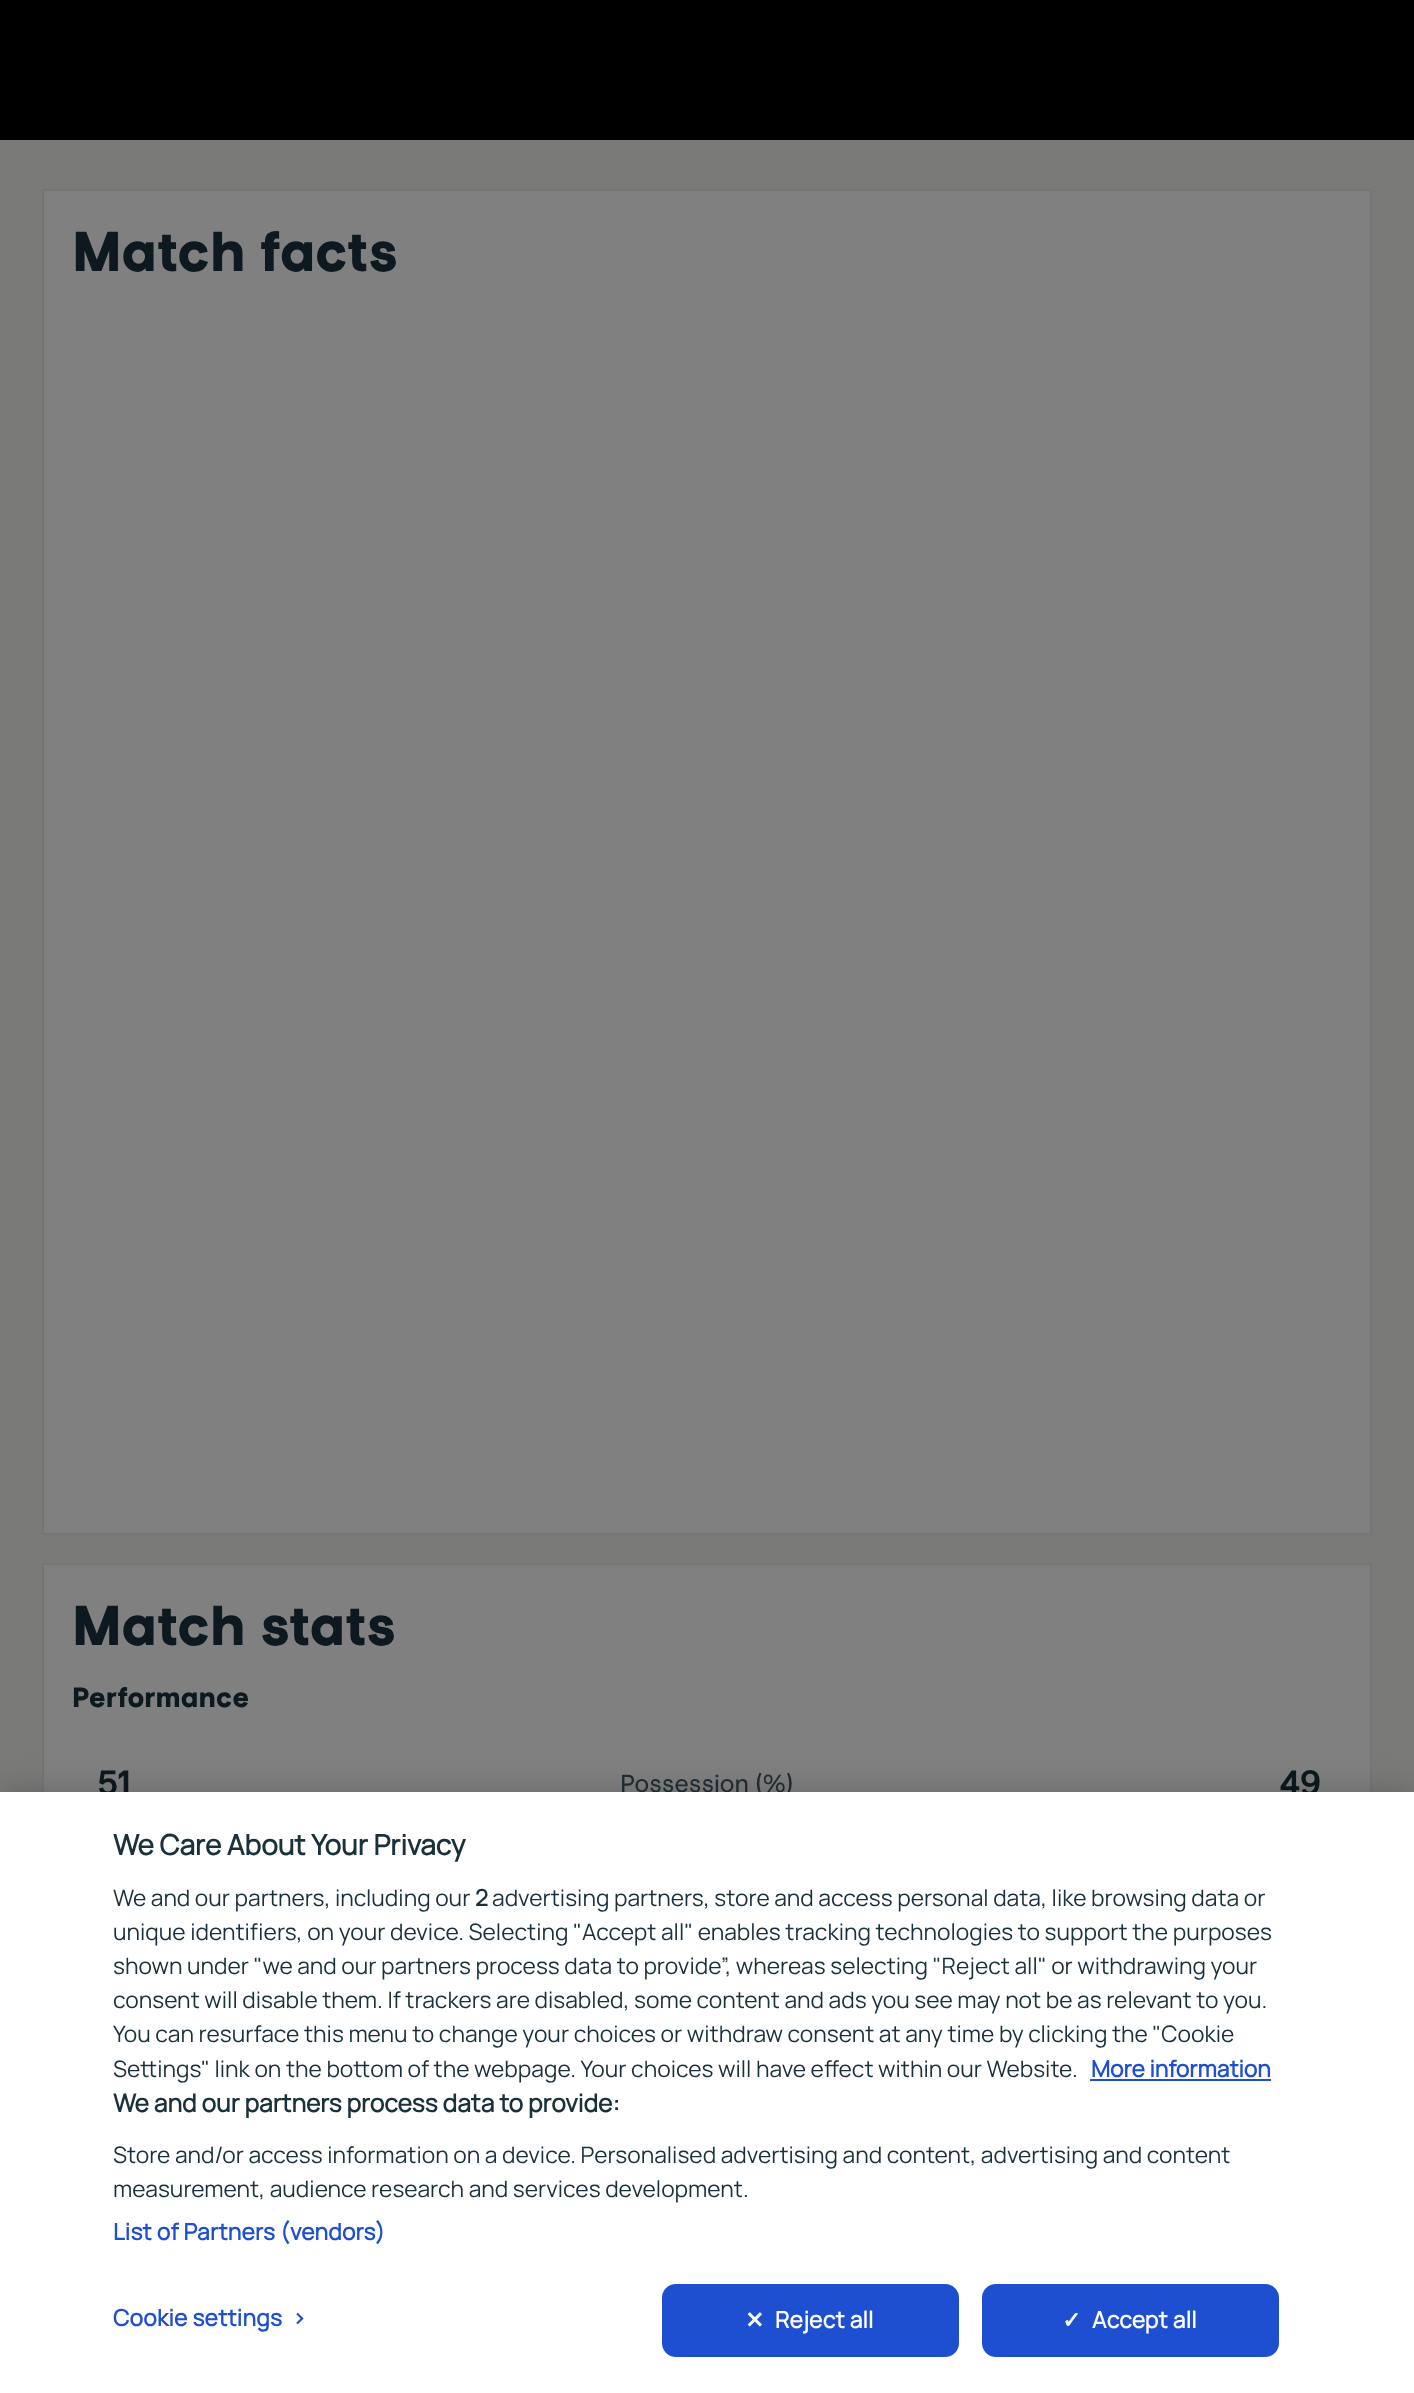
(async () => {
    const canvas = document.querySelector("canvas");
    canvas.width = 1414;
    canvas.height = 2393;
    const context = canvas.getContext("2d");
    context.miterLimit = 4;
    context.fontKerning = "normal";
    function write(s, x, y, font, color) {
        context.font = font;
        context.fillStyle = color;
        context.fillText(s, x, y);
    }
    function block(x, y, w, h, color) {
        context.fillStyle = color;
        context.fillRect(x, y, w, h);
    }

    block(0, 0, 1414, 2393, "rgb(122, 122, 121)");
    block(0, 0, 1414, 140, "rgb(0, 0, 0)");
    context.fillStyle = "rgb(128, 128, 128)";
    context.beginPath();
    context.rect(43, 190, 1328, 1344);
    context.fill();
    context.strokeStyle = "rgb(118, 118, 118)";
    context.lineWidth = 2;
    context.stroke();
    write("Match facts", 72, 271, "800 56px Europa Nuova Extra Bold", "rgb(13, 25, 30)");
    block(44, 1565, 1326, 227, "rgb(128, 128, 128)");
    context.strokeRect(43, 1564, 1328, 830);
    write("Match stats", 72, 1645, "800 56px Europa Nuova Extra Bold", "rgb(13, 25, 30)");
    write("Performance", 72, 1707, "800 28px Europa Nuova Extra Bold", "rgb(13, 25, 30)");
    write("51", 97, 1795, "bold 35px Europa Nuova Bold", "rgb(13, 25, 30)");
    write("Possession (%)", 620, 1792, "24.5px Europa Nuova", "rgb(35, 46, 52)");
    write("49", 1279, 1795, "bold 35px Europa Nuova Bold", "rgb(13, 25, 30)");
    context.fillStyle = "rgba(0, 0, 0, 0.2)";
    context.filter = "blur(16px)";
    context.beginPath();
    context.rect(0, 1792, 1414, 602);
    context.fill();
    context.filter = "none";
    block(0, 1792, 1414, 601, "rgb(255, 255, 255)");
    write("We Care About Your Privacy", 113, 1855, "bold 28px Manrope", "rgb(26, 49, 60)");
    write("We and our partners, including our", 113, 1906, "22.75px Manrope", "rgb(26, 49, 60)");
    write("2", 475, 1906, "bold 22.75px Manrope", "rgb(26, 49, 60)");
    write("advertising partners, store and access personal data, like browsing data or", 492, 1906, "22.75px Manrope", "rgb(26, 49, 60)");
    write("unique identifiers, on your device. Selecting \"Accept all\" enables tracking technologies to support the purposes", 113, 1940, "22.75px Manrope", "rgb(26, 49, 60)");
    write("shown under \"we and our partners process data to provide”, whereas selecting \"Reject all\" or withdrawing your", 113, 1974, "22.75px Manrope", "rgb(26, 49, 60)");
    write("consent will disable them. If trackers are disabled, some content and ads you see may not be as relevant to you.", 113, 2008, "22.75px Manrope", "rgb(26, 49, 60)");
    write("You can resurface this menu to change your choices or withdraw consent at any time by clicking the \"Cookie", 113, 2042, "22.75px Manrope", "rgb(26, 49, 60)");
    write("Settings\" link on the bottom of the webpage. Your choices will have effect within our Website.", 113, 2077, "22.75px Manrope", "rgb(26, 49, 60)");
    write("More information", 1091, 2077, "bold 22.75px Manrope", "rgb(30, 79, 208)");
    block(1090, 2079, 181, 2, "rgb(30, 79, 208)");
    write("We and our partners process data to provide:", 113, 2112, "bold 24.6px Manrope", "rgb(26, 49, 60)");
    write("Store and/or access information on a device. Personalised advertising and content, advertising and content", 113, 2163, "22.75px Manrope", "rgb(26, 49, 60)");
    write("measurement, audience research and services development.", 113, 2197, "22.75px Manrope", "rgb(26, 49, 60)");
    context.letterSpacing = "0.25px";
    write("List of Partners (vendors)", 113, 2240, "bold 22.75px Manrope", "rgb(30, 79, 208)");
    write("Cookie settings", 113, 2326, "bold 22.75px Manrope", "rgb(30, 79, 208)");
    write(">", 292, 2326, "bold 22.75px Manrope", "rgb(30, 79, 208)");
    context.beginPath();
    context.roundRect(663, 2285, 295, 71, 13);
    context.fill();
    context.strokeStyle = "rgb(30, 79, 208)";
    context.stroke();
    write("✕", 745, 2328, "bold 22.75px DejaVu Sans", "rgb(255, 255, 255)");
    write("Reject all", 775, 2328, "bold 22.75px Manrope", "rgb(255, 255, 255)");
    context.fillStyle = "rgb(30, 79, 208)";
    context.beginPath();
    context.roundRect(983, 2285, 295, 71, 13);
    context.fill();
    context.stroke();
    write("✓", 1062, 2328, "bold 22.75px DejaVu Sans", "rgb(255, 255, 255)");
    write("Accept all", 1092, 2328, "bold 22.75px Manrope", "rgb(255, 255, 255)");
})();
